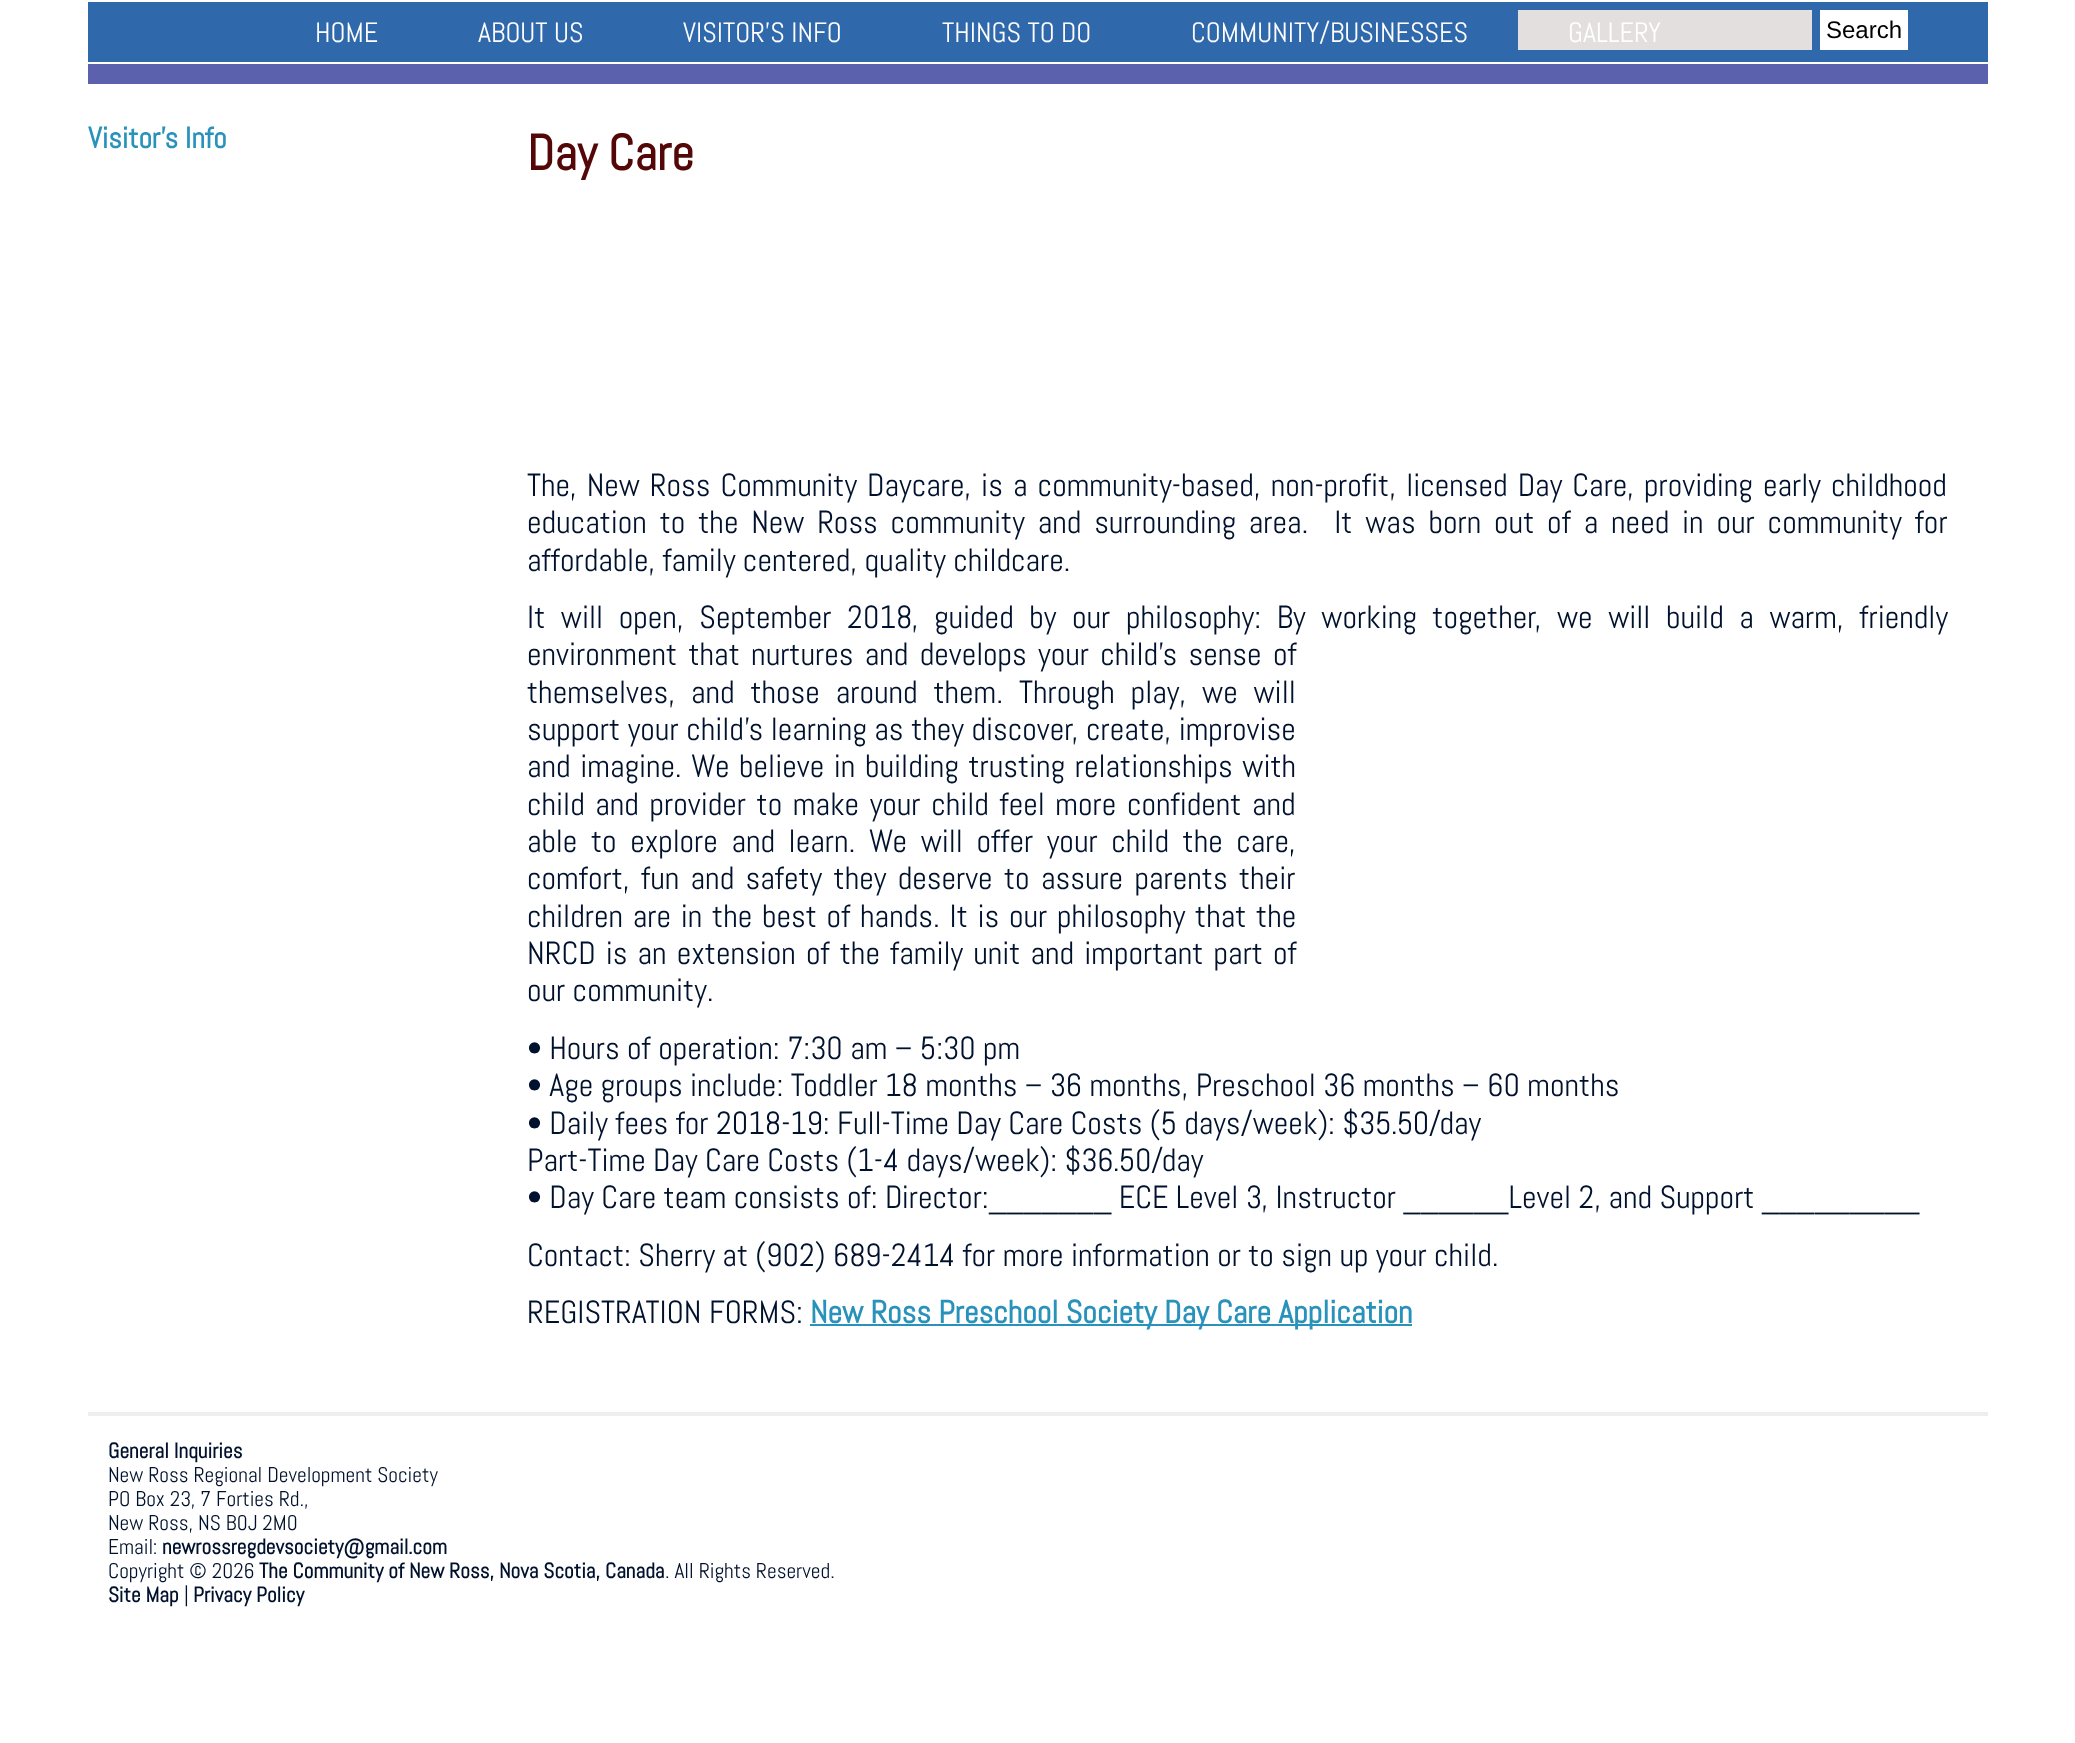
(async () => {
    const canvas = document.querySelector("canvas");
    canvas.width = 2075;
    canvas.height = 1743;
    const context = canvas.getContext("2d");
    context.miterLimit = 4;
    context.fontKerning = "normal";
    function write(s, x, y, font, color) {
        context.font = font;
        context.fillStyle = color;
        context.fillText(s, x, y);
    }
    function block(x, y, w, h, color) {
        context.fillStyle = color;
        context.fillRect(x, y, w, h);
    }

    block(0, 0, 2075, 1743, "rgb(255, 255, 255)");
    block(88, 2, 1900, 60, "rgb(47, 105, 171)");
    write("HOME", 315, 42, "28px Abel", "rgb(255, 255, 255)");
    write("ABOUT US", 478, 42, "28px Abel", "rgb(255, 255, 255)");
    write("VISITOR’S INFO", 683, 42, "28px Abel", "rgb(255, 255, 255)");
    write("THINGS TO DO", 942, 42, "28px Abel", "rgb(255, 255, 255)");
    write("COMMUNITY/BUSINESSES", 1191, 42, "28px Abel", "rgb(255, 255, 255)");
    block(1518, 10, 294, 40, "rgb(227, 223, 223)");
    write("GALLERY", 1568, 42, "28px Abel", "rgb(255, 255, 255)");
    block(1820, 10, 88, 40, "rgb(255, 255, 255)");
    write("Search", 1826, 38, "24px Liberation Sans", "rgb(0, 0, 0)");
    block(88, 64, 1900, 20, "rgb(91, 97, 172)");
    write("Visitor’s Info", 88, 148, "bold 29.5px Abel", "rgb(40, 146, 187)");
    write("Day Care", 527, 170, "bold 50px Abel", "rgb(83, 7, 7)");
    context.wordSpacing = "2.75px";
    write("The, New Ross Community Daycare, is a community-based, non-profit, licensed Day Care, providing early childhood", 527, 496, "32px Abel", "rgb(0, 17, 45)");
    context.wordSpacing = "5.5px";
    write("education to the New Ross community and surrounding area.  It was born out of a need in our community for", 527, 533, "32px Abel", "rgb(0, 17, 45)");
    context.wordSpacing = "0px";
    write("affordable, family centered, quality childcare.", 527, 571, "32px Abel", "rgb(0, 17, 45)");
    context.wordSpacing = "8.25px";
    write("It will open, September 2018, guided by our philosophy: By working together, we will build a warm, friendly", 527, 628, "32px Abel", "rgb(0, 17, 45)");
    context.wordSpacing = "4px";
    write("environment that nurtures and develops your child’s sense of", 527, 665, "32px Abel", "rgb(0, 17, 45)");
    context.wordSpacing = "8.5px";
    write("themselves, and those around them. Through play, we will", 527, 703, "32px Abel", "rgb(0, 17, 45)");
    context.wordSpacing = "0.25px";
    write("support your child’s learning as they discover, create, improvise", 527, 740, "32px Abel", "rgb(0, 17, 45)");
    context.wordSpacing = "2.25px";
    write("and imagine. We believe in building trusting relationships with", 527, 777, "32px Abel", "rgb(0, 17, 45)");
    context.wordSpacing = "3.25px";
    write("child and provider to make your child feel more confident and", 527, 815, "32px Abel", "rgb(0, 17, 45)");
    context.wordSpacing = "6.25px";
    write("able to explore and learn. We will offer your child the care,", 527, 852, "32px Abel", "rgb(0, 17, 45)");
    context.wordSpacing = "4px";
    write("comfort, fun and safety they deserve to assure parents their", 527, 889, "32px Abel", "rgb(0, 17, 45)");
    context.wordSpacing = "2.4px";
    write("children are in the best of hands. It is our philosophy that the", 527, 927, "32px Abel", "rgb(0, 17, 45)");
    context.wordSpacing = "2.75px";
    write("NRCD is an extension of the family unit and important part of", 527, 964, "32px Abel", "rgb(0, 17, 45)");
    context.wordSpacing = "0px";
    write("our community.", 527, 1001, "32px Abel", "rgb(0, 17, 45)");
    write("• Hours of operation: 7:30 am – 5:30 pm", 527, 1059, "32px Abel", "rgb(0, 17, 45)");
    write("• Age groups include: Toddler 18 months – 36 months, Preschool 36 months – 60 months", 527, 1096, "32px Abel", "rgb(0, 17, 45)");
    write("• Daily fees for 2018-19: Full-Time Day Care Costs (5 days/week): $35.50/day", 527, 1134, "32px Abel", "rgb(0, 17, 45)");
    write("Part-Time Day Care Costs (1-4 days/week): $36.50/day", 527, 1171, "32px Abel", "rgb(0, 17, 45)");
    write("• Day Care team consists of: Director:_______ ECE Level 3, Instructor ______Level 2, and Support _________", 527, 1208, "32px Abel", "rgb(0, 17, 45)");
    write("Contact: Sherry at (902) 689-2414 for more information or to sign up your child.", 527, 1266, "32px Abel", "rgb(0, 17, 45)");
    write("REGISTRATION FORMS:", 527, 1323, "32px Abel", "rgb(0, 17, 45)");
    block(810, 1324, 602, 2, "rgb(40, 146, 187)");
    write("New Ross Preschool Society Day Care Application", 810, 1323, "bold 32px Abel", "rgb(40, 146, 187)");
    block(88, 1412, 1900, 4, "rgb(238, 238, 238)");
    write("General Inquiries", 108, 1458, "bold 21.3px Abel", "rgb(0, 17, 45)");
    write("New Ross Regional Development Society", 108, 1482, "21.3px Abel", "rgb(0, 17, 45)");
    write("PO Box 23, 7 Forties Rd.,", 108, 1506, "21.3px Abel", "rgb(0, 17, 45)");
    write("New Ross, NS B0J 2M0", 108, 1530, "21.3px Abel", "rgb(0, 17, 45)");
    write("Email:", 108, 1554, "21.3px Abel", "rgb(0, 17, 45)");
    write("newrossregdevsociety@gmail.com", 162, 1554, "bold 21.3px Abel", "rgb(0, 17, 45)");
    write("Copyright © 2026", 108, 1578, "21.3px Abel", "rgb(0, 17, 45)");
    write("The Community of New Ross, Nova Scotia, Canada", 259, 1578, "bold 21.3px Abel", "rgb(0, 17, 45)");
    write(". All Rights Reserved.", 665, 1578, "21.3px Abel", "rgb(0, 17, 45)");
    write("Site Map", 108, 1602, "bold 21.3px Abel", "rgb(0, 17, 45)");
    write("|", 184, 1602, "21.3px Abel", "rgb(0, 17, 45)");
    write("Privacy Policy", 193, 1602, "bold 21.3px Abel", "rgb(0, 17, 45)");
})();
